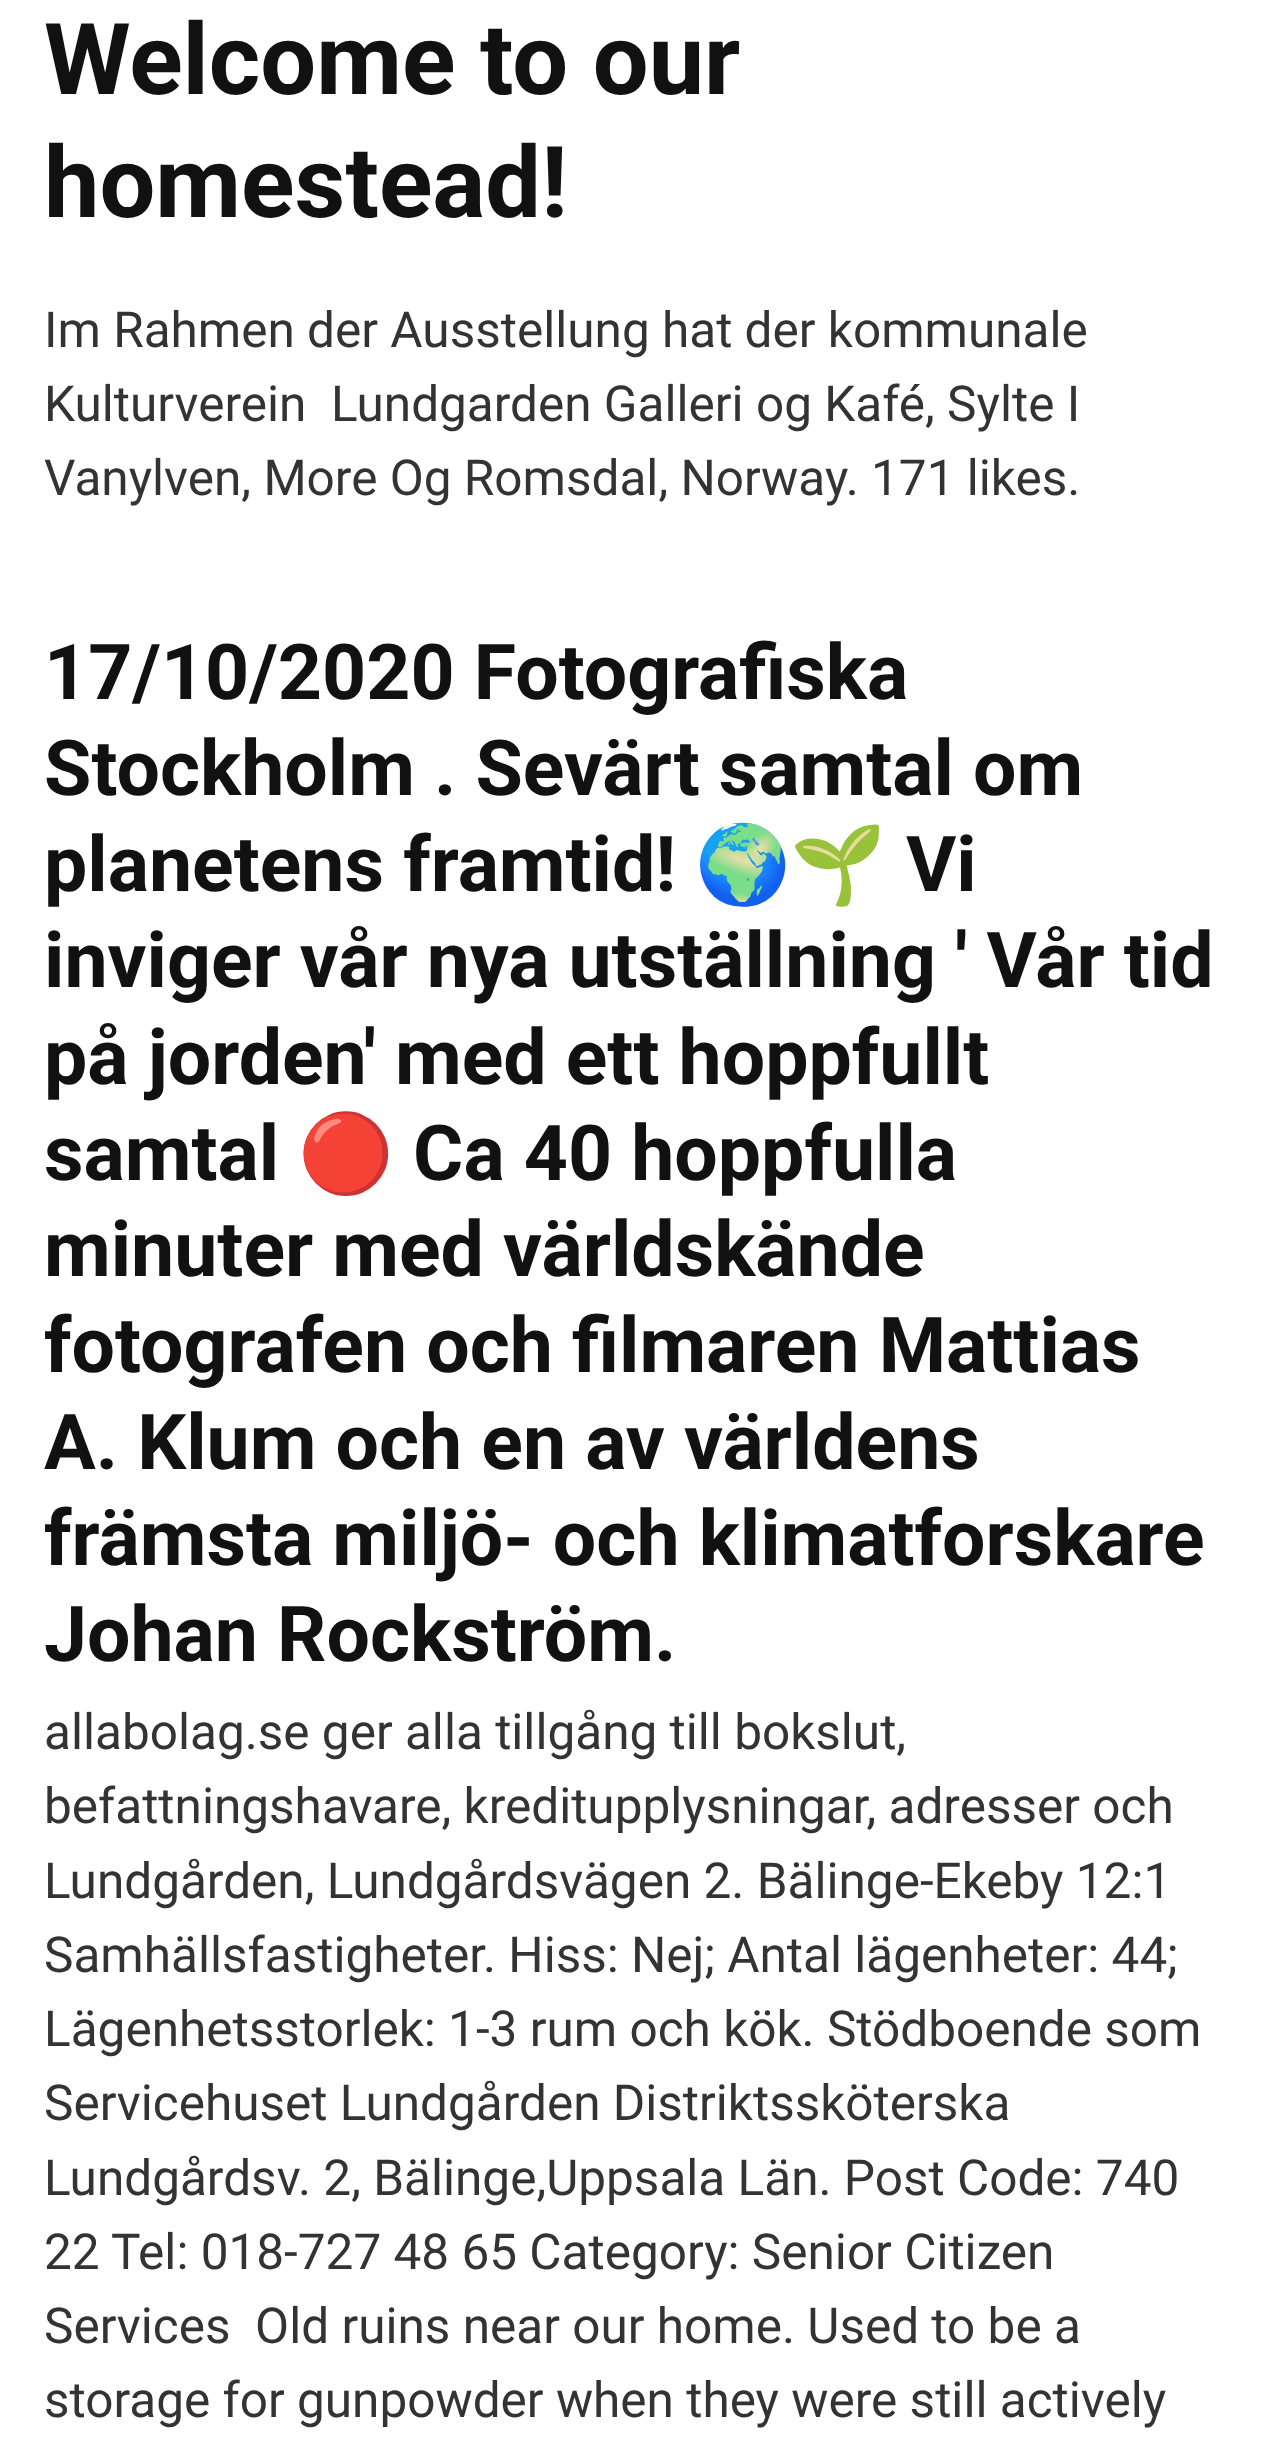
(async () => {
    const canvas = document.querySelector("canvas");
    canvas.width = 1266;
    canvas.height = 2455;
    const context = canvas.getContext("2d");
    context.miterLimit = 4;
    context.fontKerning = "normal";
    function write(s, x, y, font, color) {
        context.font = font;
        context.fillStyle = color;
        context.fillText(s, x, y);
    }
    function block(x, y, w, h, color) {
        context.fillStyle = color;
        context.fillRect(x, y, w, h);
    }

    block(0, 0, 1266, 2455, "rgb(255, 255, 255)");
    write("Welcome to our", 44, 94, "bold 99px Roboto", "rgb(17, 17, 17)");
    write("homestead!", 44, 217, "bold 99px Roboto", "rgb(17, 17, 17)");
    write("Im Rahmen der Ausstellung hat der kommunale", 44, 347, "49.5px Roboto", "rgb(51, 51, 51)");
    write("Kulturverein  Lundgarden Galleri og Kafé, Sylte I", 44, 421, "49.5px Roboto", "rgb(51, 51, 51)");
    write("Vanylven, More Og Romsdal, Norway. 171 likes.", 44, 495, "49.5px Roboto", "rgb(51, 51, 51)");
    write("17/10/2020 Fotografiska", 44, 699, "bold 77px Roboto", "rgb(17, 17, 17)");
    write("Stockholm . Sevärt samtal om", 44, 795, "bold 77px Roboto", "rgb(17, 17, 17)");
    write("planetens framtid!", 44, 891, "bold 77px Roboto", "rgb(17, 17, 17)");
    write("🌍🌱", 695, 891, "bold 77px Noto Color Emoji", "rgb(17, 17, 17)");
    write("Vi", 906, 891, "bold 77px Roboto", "rgb(17, 17, 17)");
    write("inviger vår nya utställning ' Vår tid", 44, 987, "bold 77px Roboto", "rgb(17, 17, 17)");
    write("på jorden' med ett hoppfullt", 44, 1084, "bold 77px Roboto", "rgb(17, 17, 17)");
    write("samtal", 44, 1180, "bold 77px Roboto", "rgb(17, 17, 17)");
    write("🔴", 298, 1180, "bold 77px Noto Color Emoji", "rgb(17, 17, 17)");
    write("Ca 40 hoppfulla", 413, 1180, "bold 77px Roboto", "rgb(17, 17, 17)");
    write("minuter med världskände", 44, 1276, "bold 77px Roboto", "rgb(17, 17, 17)");
    write("fotografen och filmaren Mattias", 44, 1372, "bold 77px Roboto", "rgb(17, 17, 17)");
    write("A. Klum och en av världens", 44, 1469, "bold 77px Roboto", "rgb(17, 17, 17)");
    write("främsta miljö- och klimatforskare", 44, 1565, "bold 77px Roboto", "rgb(17, 17, 17)");
    write("Johan Rockström.", 44, 1661, "bold 77px Roboto", "rgb(17, 17, 17)");
    write("allabolag.se ger alla tillgång till bokslut,", 44, 1749, "49.5px Roboto", "rgb(51, 51, 51)");
    write("befattningshavare, kreditupplysningar, adresser och", 44, 1823, "49.5px Roboto", "rgb(51, 51, 51)");
    write("Lundgården, Lundgårdsvägen 2. Bälinge-Ekeby 12:1", 44, 1898, "49.5px Roboto", "rgb(51, 51, 51)");
    write("Samhällsfastigheter. Hiss: Nej; Antal lägenheter: 44;", 44, 1972, "49.5px Roboto", "rgb(51, 51, 51)");
    write("Lägenhetsstorlek: 1-3 rum och kök. Stödboende som", 44, 2046, "49.5px Roboto", "rgb(51, 51, 51)");
    write("Servicehuset Lundgården Distriktssköterska", 44, 2120, "49.5px Roboto", "rgb(51, 51, 51)");
    write("Lundgårdsv. 2, Bälinge,Uppsala Län. Post Code: 740", 44, 2195, "49.5px Roboto", "rgb(51, 51, 51)");
    write("22 Tel: 018-727 48 65 Category: Senior Citizen", 44, 2269, "49.5px Roboto", "rgb(51, 51, 51)");
    write("Services  Old ruins near our home. Used to be a", 44, 2343, "49.5px Roboto", "rgb(51, 51, 51)");
    write("storage for gunpowder when they were still actively", 44, 2417, "49.5px Roboto", "rgb(51, 51, 51)");
})();
